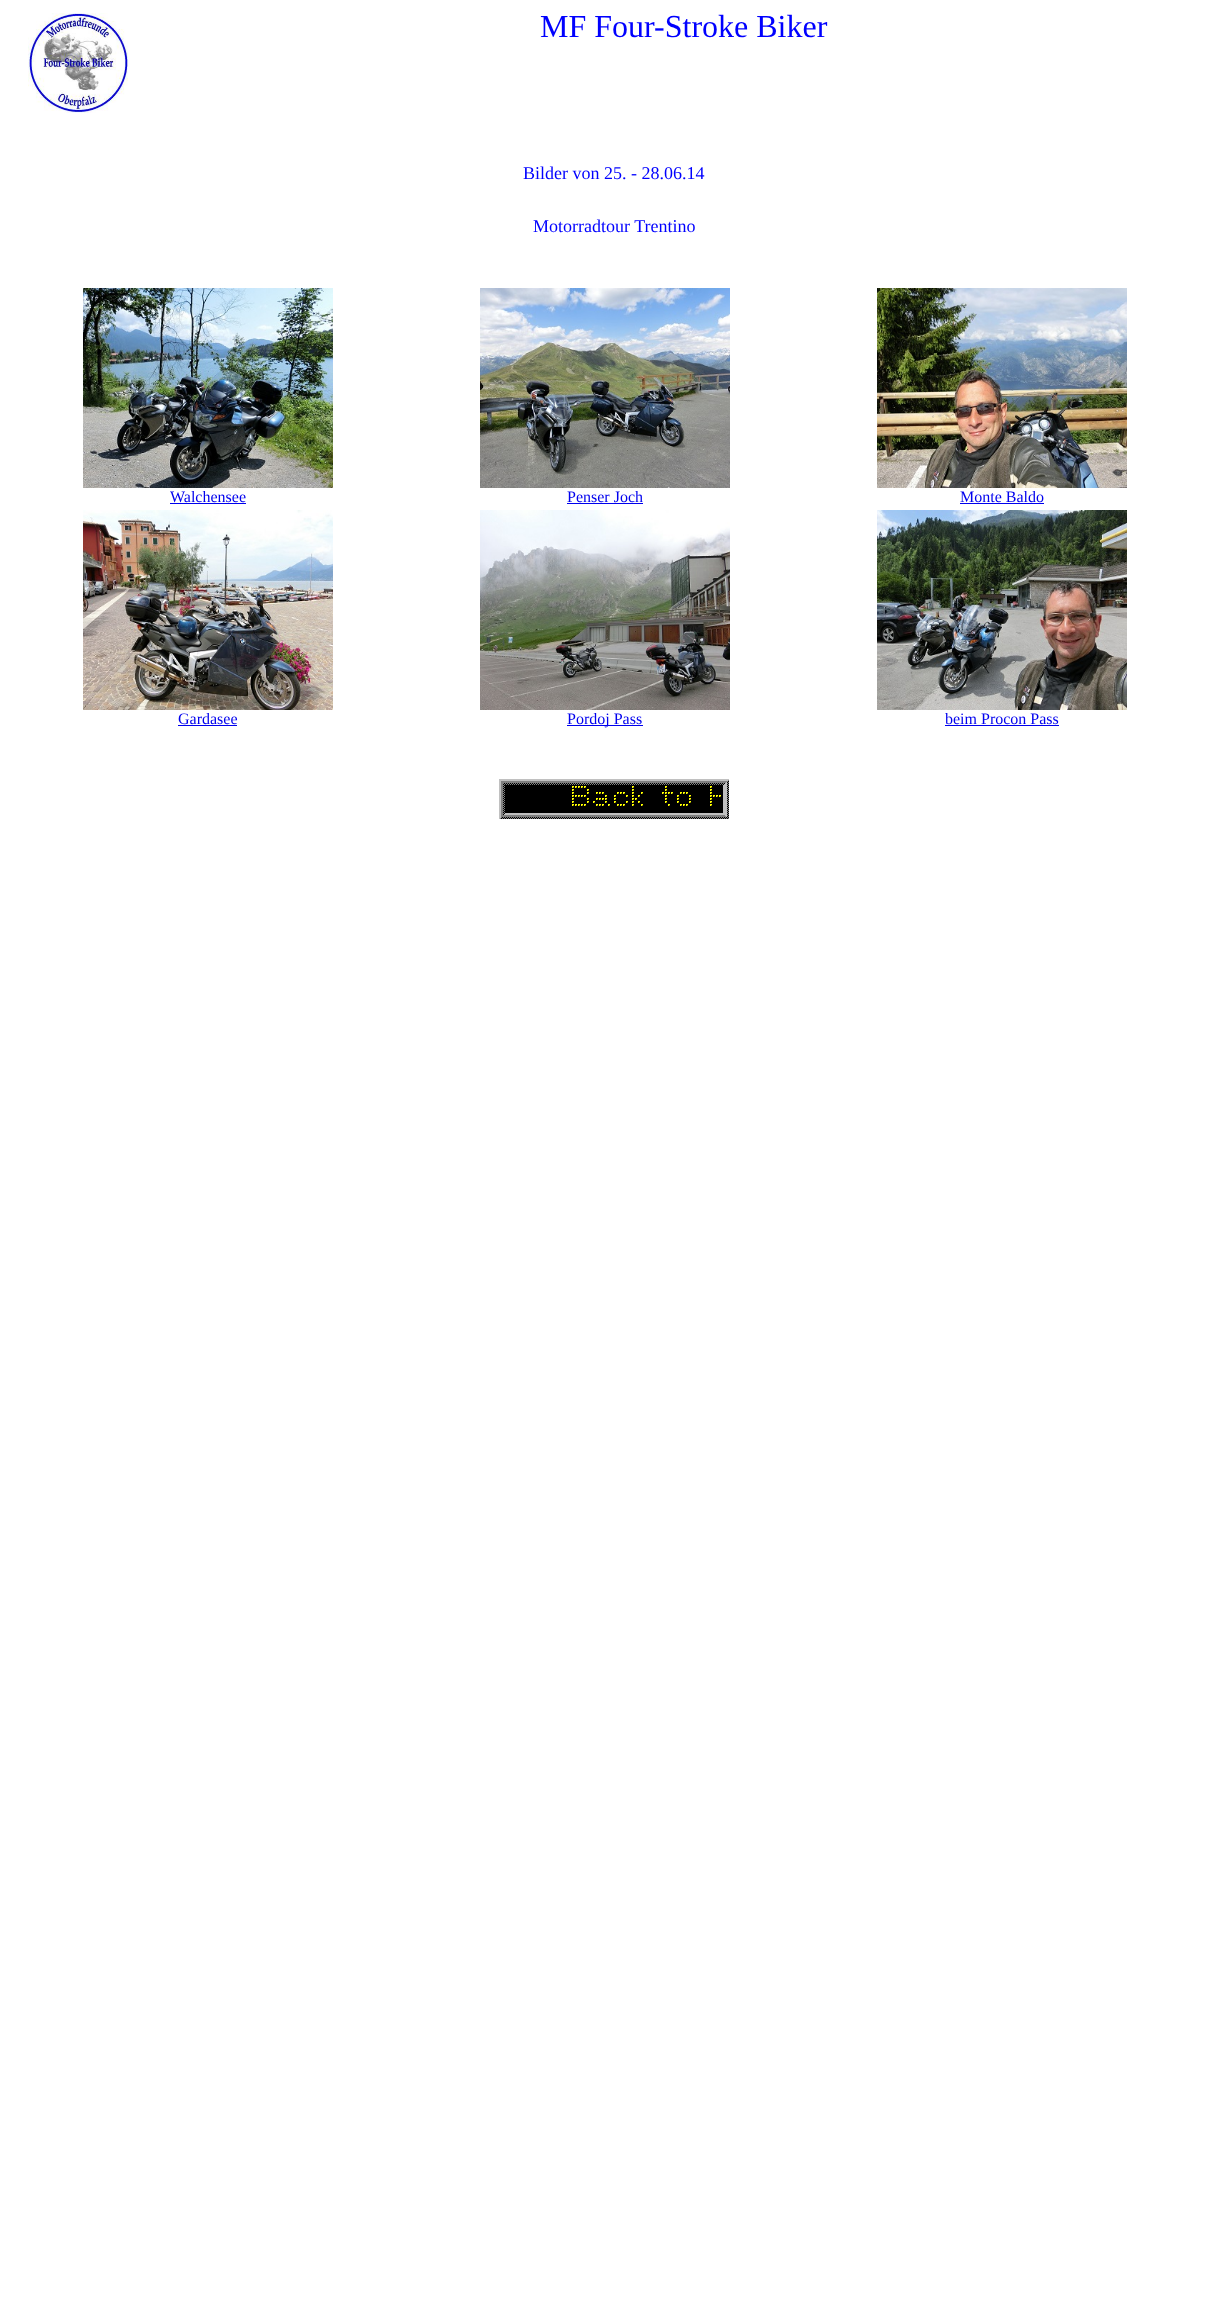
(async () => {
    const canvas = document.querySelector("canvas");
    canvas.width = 1228;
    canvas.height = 2297;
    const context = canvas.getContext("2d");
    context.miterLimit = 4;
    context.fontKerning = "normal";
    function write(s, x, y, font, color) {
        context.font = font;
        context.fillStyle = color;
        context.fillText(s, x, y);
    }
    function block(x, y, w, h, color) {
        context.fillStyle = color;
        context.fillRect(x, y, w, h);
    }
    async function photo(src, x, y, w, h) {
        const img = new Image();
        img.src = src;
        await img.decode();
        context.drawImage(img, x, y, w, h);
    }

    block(0, 0, 1228, 2297, "rgb(255, 255, 255)");
    await photo("media/1.png", 28, 13, 100, 100);
    write("MF Four-Stroke Biker", 540, 37, "32px Liberation Serif", "rgb(0, 0, 255)");
    write("Bilder von 25. - 28.06.14", 523, 179, "18px Liberation Serif", "rgb(0, 0, 255)");
    write("Motorradtour Trentino", 533, 232, "18px Liberation Serif", "rgb(0, 0, 255)");
    await photo("media/2.png", 83, 288, 250, 200);
    write("Walchensee", 170, 502, "16px Liberation Serif", "rgb(0, 0, 238)");
    block(170, 503, 76, 1, "rgb(0, 0, 238)");
    await photo("media/3.png", 480, 288, 250, 200);
    write("Penser Joch", 567, 502, "16px Liberation Serif", "rgb(0, 0, 238)");
    block(567, 503, 76, 1, "rgb(0, 0, 238)");
    await photo("media/4.png", 877, 288, 250, 200);
    write("Monte Baldo", 960, 502, "16px Liberation Serif", "rgb(0, 0, 238)");
    block(960, 503, 84, 1, "rgb(0, 0, 238)");
    await photo("media/5.png", 83, 510, 250, 200);
    write("Gardasee", 178, 724, "16px Liberation Serif", "rgb(0, 0, 238)");
    block(178, 725, 59, 1, "rgb(0, 0, 238)");
    await photo("media/6.png", 480, 510, 250, 200);
    block(567, 725, 76, 1, "rgb(0, 0, 238)");
    write("Pordoj Pass", 567, 724, "16px Liberation Serif", "rgb(0, 0, 238)");
    await photo("media/7.png", 877, 510, 250, 200);
    write("beim Procon Pass", 945, 724, "16px Liberation Serif", "rgb(0, 0, 238)");
    block(945, 725, 114, 1, "rgb(0, 0, 238)");
    await photo("media/8.png", 499, 779, 230, 40);
})();
